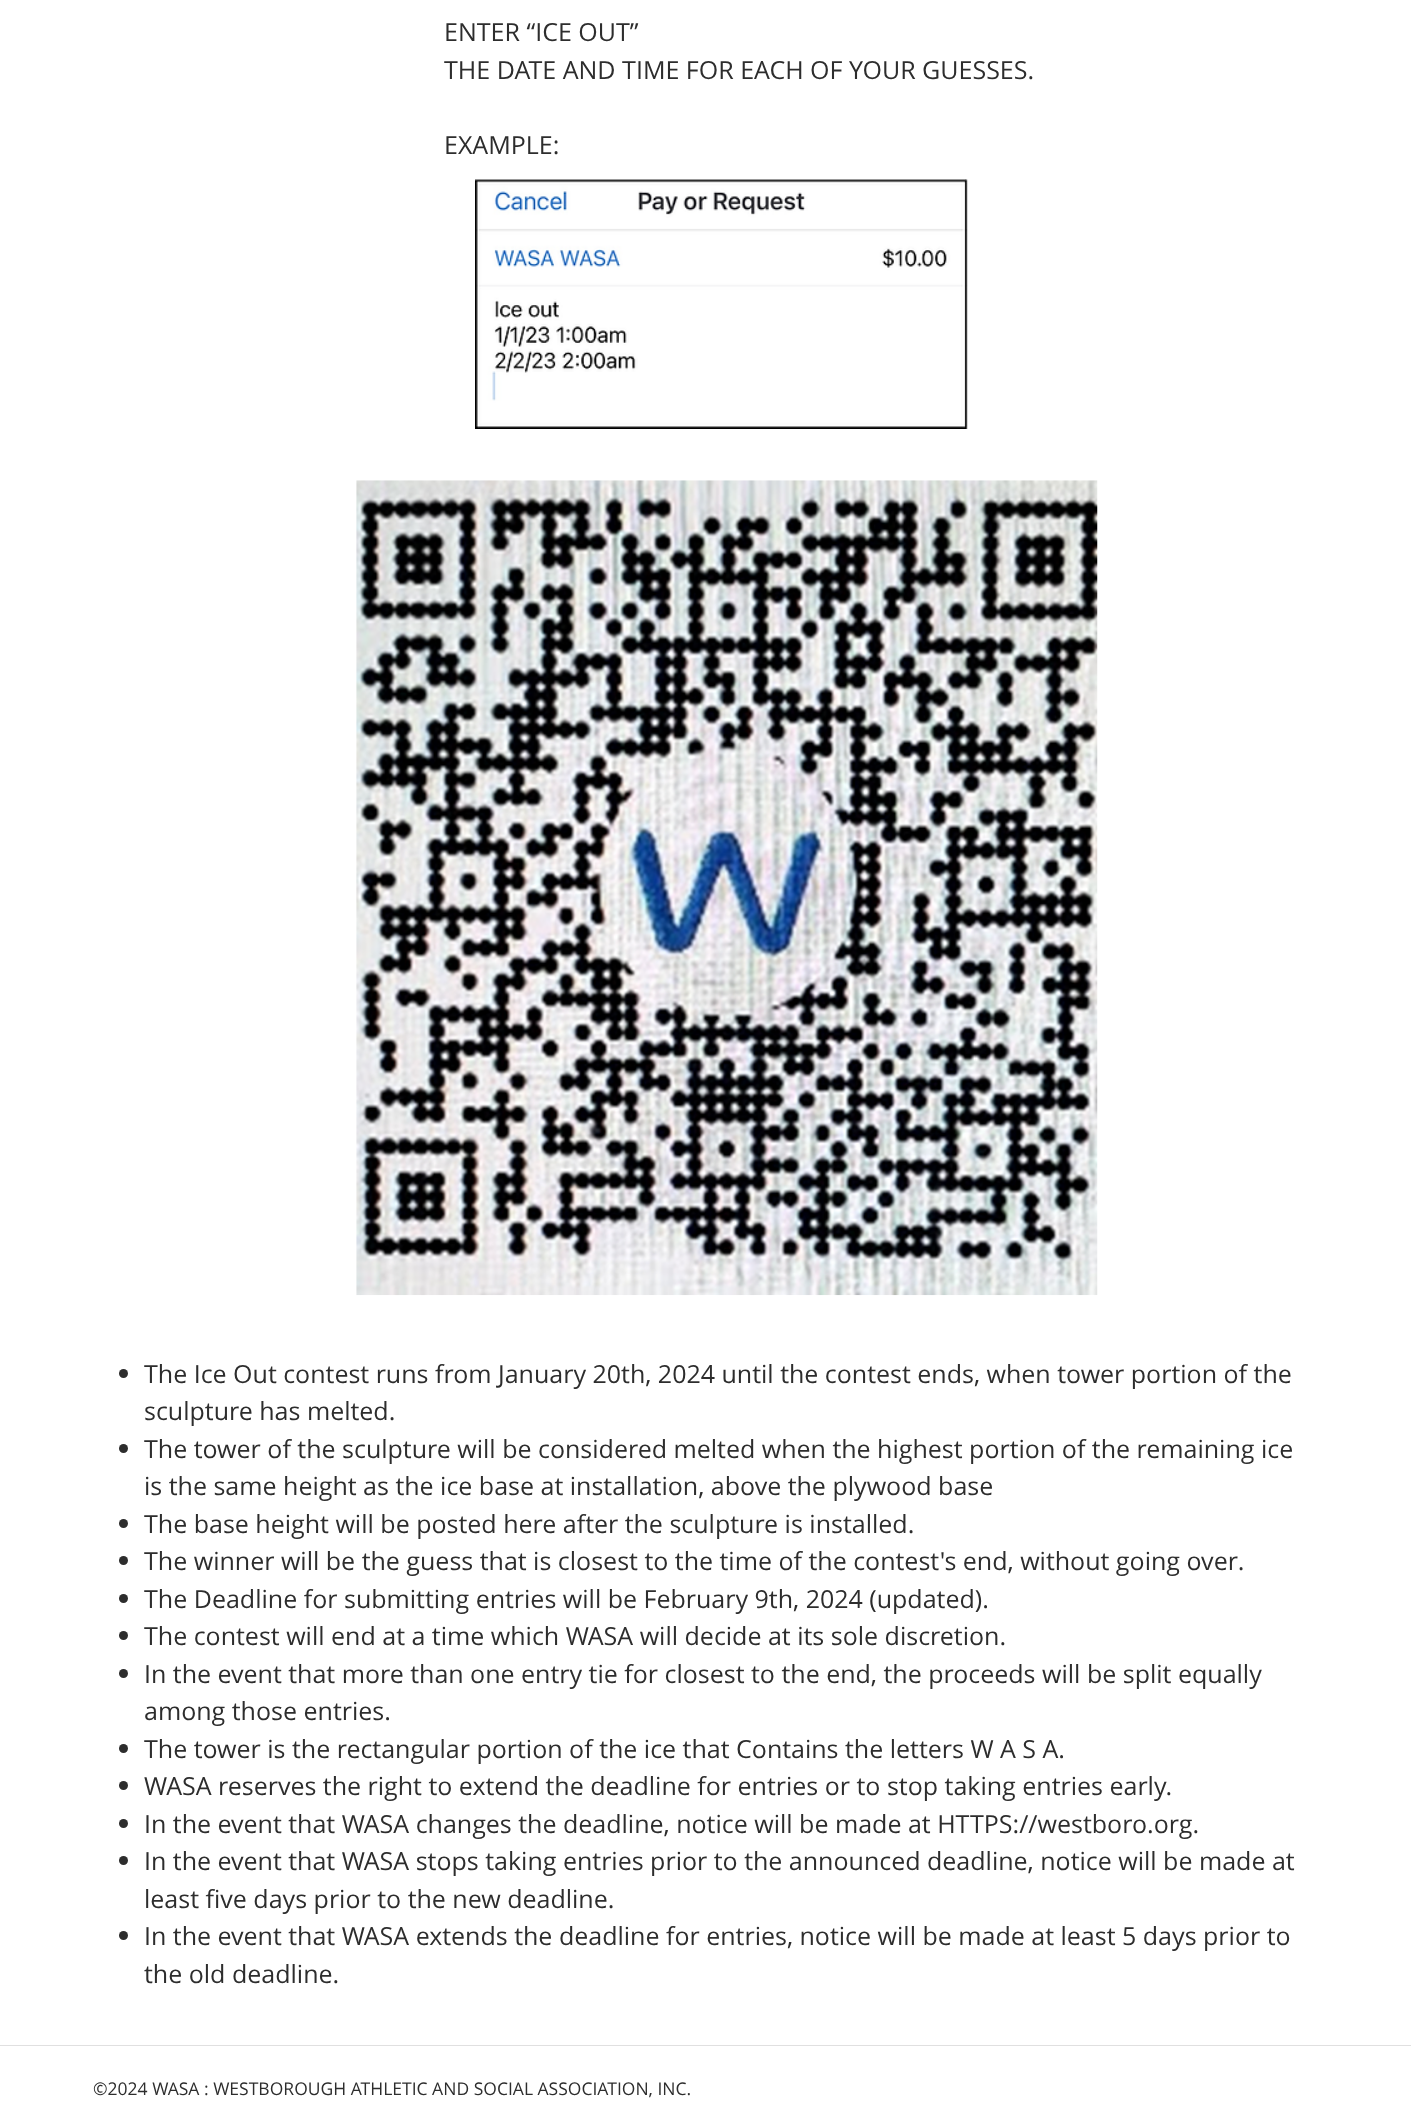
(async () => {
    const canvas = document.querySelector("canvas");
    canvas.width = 1411;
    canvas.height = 2101;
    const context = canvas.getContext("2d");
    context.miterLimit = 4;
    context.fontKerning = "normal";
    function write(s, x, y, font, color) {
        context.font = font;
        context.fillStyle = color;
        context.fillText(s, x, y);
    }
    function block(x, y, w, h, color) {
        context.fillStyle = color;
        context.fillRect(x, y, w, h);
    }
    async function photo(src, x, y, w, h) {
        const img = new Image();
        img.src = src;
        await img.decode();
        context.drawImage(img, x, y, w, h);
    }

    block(0, 0, 1411, 2101, "rgb(255, 255, 255)");
    write("ENTER “ICE OUT”", 444, 41, "25px Open Sans", "rgb(45, 45, 45)");
    write("THE DATE AND TIME FOR EACH OF YOUR GUESSES.", 444, 79, "25px Open Sans", "rgb(45, 45, 45)");
    write("EXAMPLE:", 444, 154, "25px Open Sans", "rgb(45, 45, 45)");
    await photo("media/1.png", 475, 179, 493, 250);
    await photo("media/2.png", 356, 480, 742, 816);
    context.beginPath();
    context.arc(123.5, 1373.5, 4.5, 0, Math.PI * 2);
    context.fill();
    write("The Ice Out contest runs from January 20th, 2024 until the contest ends, when tower portion of the", 144, 1383, "25px Open Sans", "rgb(45, 45, 45)");
    write("sculpture has melted.", 144, 1420, "25px Open Sans", "rgb(45, 45, 45)");
    context.beginPath();
    context.arc(123.5, 1448.5, 4.5, 0, Math.PI * 2);
    context.fill();
    write("The tower of the sculpture will be considered melted when the highest portion of the remaining ice", 144, 1458, "25px Open Sans", "rgb(45, 45, 45)");
    write("is the same height as the ice base at installation, above the plywood base", 144, 1495, "25px Open Sans", "rgb(45, 45, 45)");
    context.beginPath();
    context.arc(123.5, 1523.5, 4.5, 0, Math.PI * 2);
    context.fill();
    write("The base height will be posted here after the sculpture is installed.", 144, 1533, "25px Open Sans", "rgb(45, 45, 45)");
    context.beginPath();
    context.arc(123.5, 1560.5, 4.5, 0, Math.PI * 2);
    context.fill();
    write("The winner will be the guess that is closest to the time of the contest's end, without going over.", 144, 1570, "25px Open Sans", "rgb(45, 45, 45)");
    context.beginPath();
    context.arc(123.5, 1598.5, 4.5, 0, Math.PI * 2);
    context.fill();
    write("The Deadline for submitting entries will be February 9th, 2024 (updated).", 144, 1608, "25px Open Sans", "rgb(45, 45, 45)");
    context.beginPath();
    context.arc(123.5, 1635.5, 4.5, 0, Math.PI * 2);
    context.fill();
    write("The contest will end at a time which WASA will decide at its sole discretion.", 144, 1645, "25px Open Sans", "rgb(45, 45, 45)");
    context.beginPath();
    context.arc(123.5, 1673.5, 4.5, 0, Math.PI * 2);
    context.fill();
    write("In the event that more than one entry tie for closest to the end, the proceeds will be split equally", 144, 1683, "25px Open Sans", "rgb(45, 45, 45)");
    write("among those entries.", 144, 1720, "25px Open Sans", "rgb(45, 45, 45)");
    context.beginPath();
    context.arc(123.5, 1748.5, 4.5, 0, Math.PI * 2);
    context.fill();
    write("The tower is the rectangular portion of the ice that Contains the letters W A S A.", 144, 1758, "25px Open Sans", "rgb(45, 45, 45)");
    context.beginPath();
    context.arc(123.5, 1785.5, 4.5, 0, Math.PI * 2);
    context.fill();
    write("WASA reserves the right to extend the deadline for entries or to stop taking entries early.", 144, 1795, "25px Open Sans", "rgb(45, 45, 45)");
    context.beginPath();
    context.arc(123.5, 1823.5, 4.5, 0, Math.PI * 2);
    context.fill();
    write("In the event that WASA changes the deadline, notice will be made at HTTPS://westboro.org.", 144, 1833, "25px Open Sans", "rgb(45, 45, 45)");
    context.beginPath();
    context.arc(123.5, 1860.5, 4.5, 0, Math.PI * 2);
    context.fill();
    write("In the event that WASA stops taking entries prior to the announced deadline, notice will be made at", 144, 1870, "25px Open Sans", "rgb(45, 45, 45)");
    write("least five days prior to the new deadline.", 144, 1908, "25px Open Sans", "rgb(45, 45, 45)");
    context.beginPath();
    context.arc(123.5, 1935.5, 4.5, 0, Math.PI * 2);
    context.fill();
    write("In the event that WASA extends the deadline for entries, notice will be made at least 5 days prior to", 144, 1945, "25px Open Sans", "rgb(45, 45, 45)");
    write("the old deadline.", 144, 1983, "25px Open Sans", "rgb(45, 45, 45)");
    block(0, 2045, 1411, 1, "rgb(224, 224, 224)");
    write("©2024 WASA : WESTBOROUGH ATHLETIC AND SOCIAL ASSOCIATION, INC.", 93, 2095, "17.5px Open Sans", "rgb(45, 45, 45)");
})();
